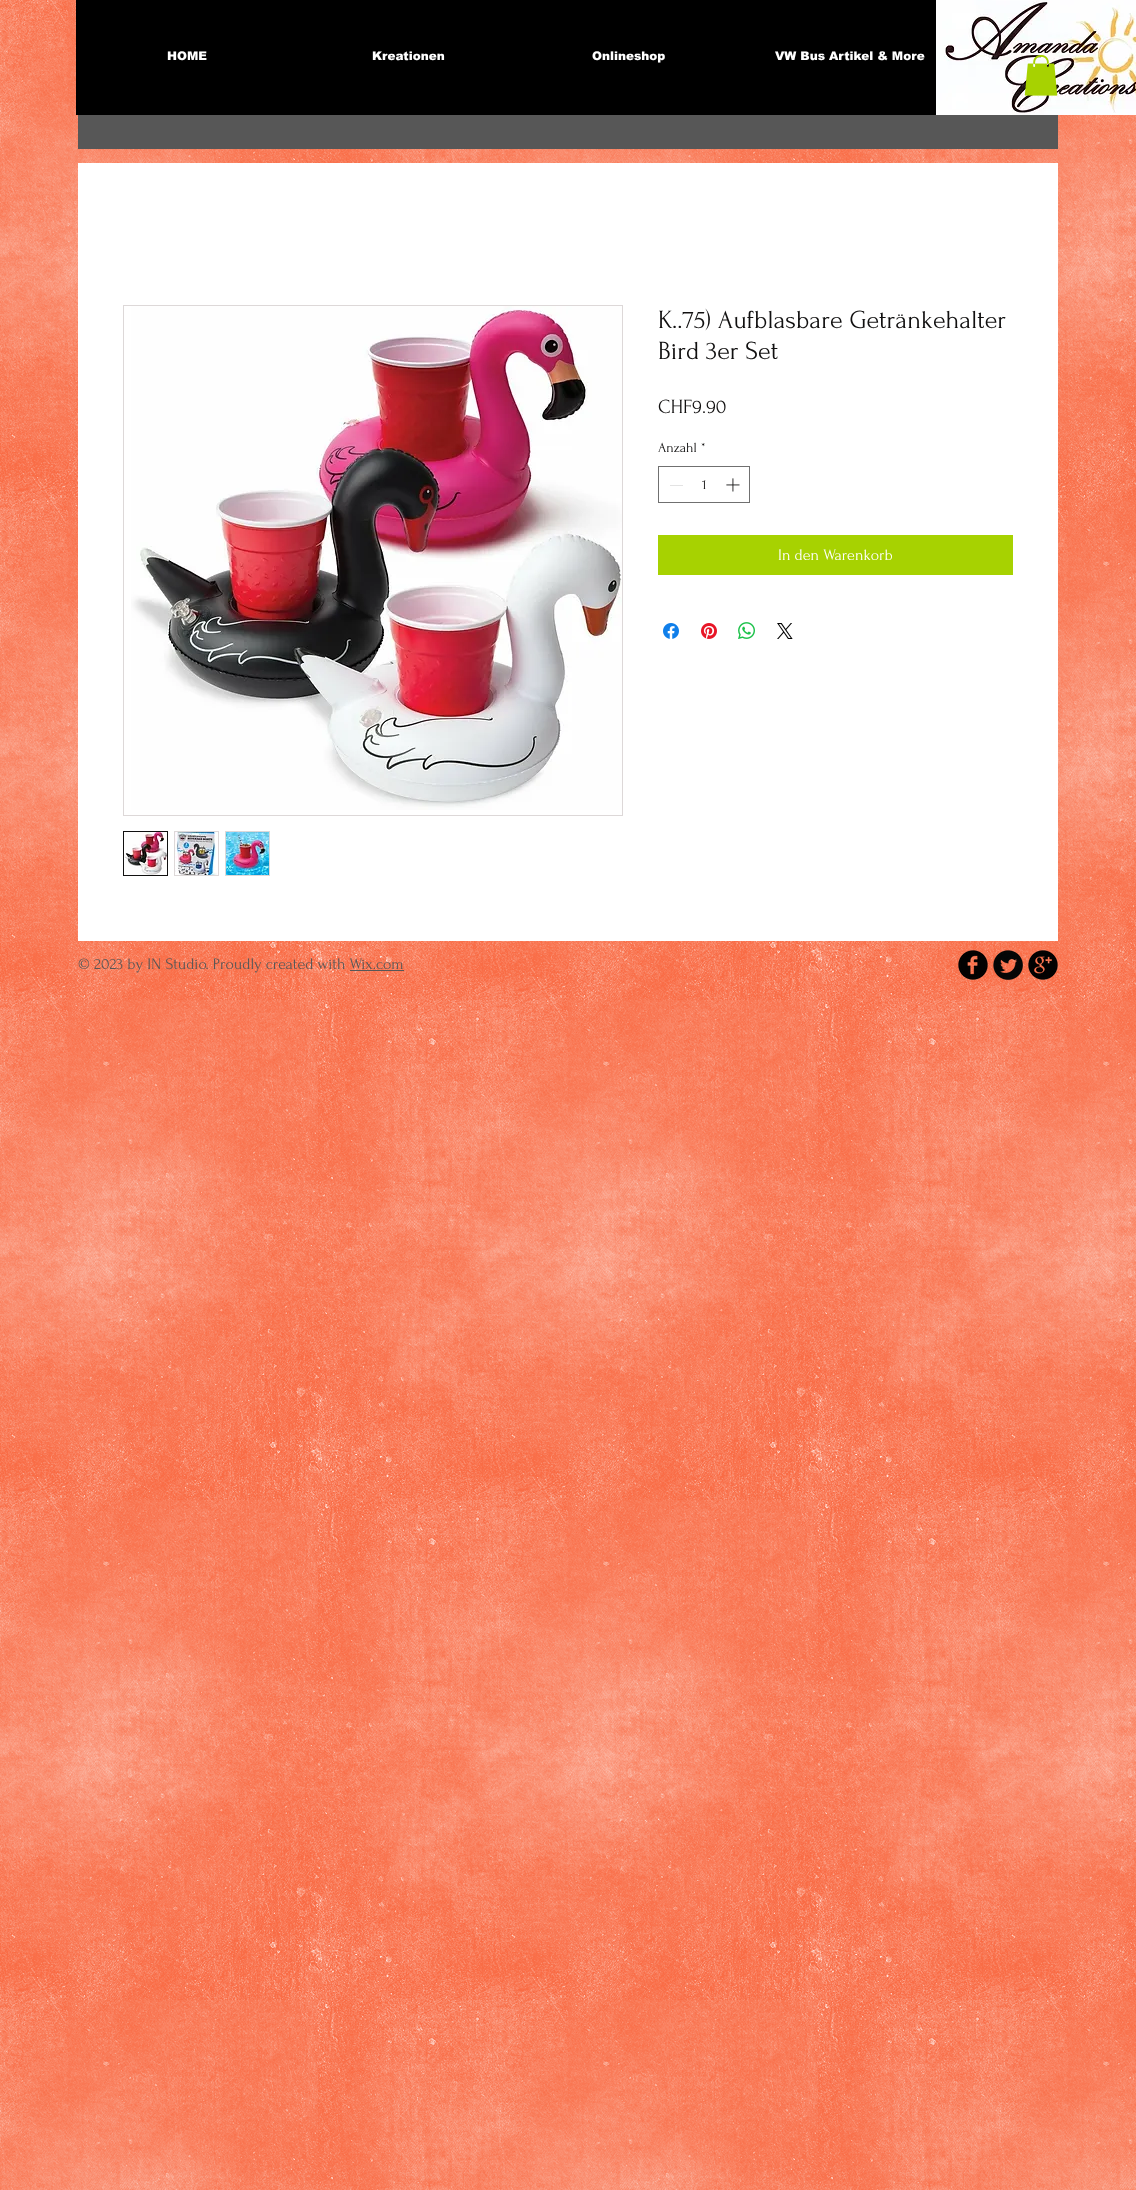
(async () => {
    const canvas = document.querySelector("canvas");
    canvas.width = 1136;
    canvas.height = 2190;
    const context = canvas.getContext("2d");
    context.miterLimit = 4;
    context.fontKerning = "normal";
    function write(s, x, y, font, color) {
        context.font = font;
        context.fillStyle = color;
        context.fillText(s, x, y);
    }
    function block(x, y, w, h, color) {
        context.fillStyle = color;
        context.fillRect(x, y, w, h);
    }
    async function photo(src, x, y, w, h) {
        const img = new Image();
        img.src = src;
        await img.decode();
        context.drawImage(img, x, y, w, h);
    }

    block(0, 0, 1136, 2190, "rgb(249, 107, 68)");
    await photo("media/1.png", 0, 0, 1136, 2190);
    block(76, 0, 860, 115, "rgb(0, 0, 0)");
    write("HOME", 167, 60, "900 12px arial", "rgb(255, 255, 255)");
    write("Kreationen", 372, 60, "900 12px arial", "rgb(255, 255, 255)");
    write("Onlineshop", 592, 60, "900 12px arial", "rgb(255, 255, 255)");
    write("VW Bus Artikel & More", 775, 60, "900 12px arial", "rgb(255, 255, 255)");
    await photo("media/2.png", 936, 0, 200, 115);
    await photo("media/3.png", 1024, 55, 34, 41);
    block(78, 115, 980, 34, "rgb(87, 87, 87)");
    block(78, 163, 980, 778, "rgb(255, 255, 255)");
    context.strokeStyle = "rgb(221, 216, 216)";
    context.strokeRect(123.5, 305.5, 499, 510);
    await photo("media/4.png", 131, 306, 491, 504);
    context.strokeStyle = "rgb(17, 16, 16)";
    context.strokeRect(123.5, 831.5, 44, 44);
    await photo("media/5.png", 124, 832, 43, 43);
    block(174, 831, 45, 45, "rgb(221, 216, 216)");
    await photo("media/6.png", 175, 832, 43, 43);
    block(225, 831, 45, 45, "rgb(221, 216, 216)");
    await photo("media/7.png", 226, 832, 43, 43);
    write("K..75) Aufblasbare Getränkehalter", 658, 328, "26px Forum", "rgb(17, 16, 16)");
    write("Bird 3er Set", 658, 359, "26px Forum", "rgb(17, 16, 16)");
    write("CHF9.90", 658, 413, "20px Forum", "rgb(17, 16, 16)");
    write("Anzahl", 658, 452, "14px Forum", "rgb(17, 16, 16)");
    write("*", 701, 452, "14px Forum", "rgb(17, 16, 16)");
    context.strokeStyle = "rgb(112, 112, 112)";
    context.strokeRect(658.5, 466.5, 91, 36);
    block(670, 485, 13, 1, "rgb(227, 227, 227)");
    write("1", 702, 489, "14px Forum", "rgb(17, 16, 16)");
    await photo("media/8.png", 726, 478, 14, 14);
    block(658, 535, 355, 40, "rgb(167, 210, 1)");
    write("In den Warenkorb", 778, 560, "16px Forum", "rgb(255, 255, 255)");
    await photo("media/9.png", 663, 623, 16, 16);
    await photo("media/10.png", 701, 623, 16, 16);
    await photo("media/11.png", 738, 622, 17, 17);
    await photo("media/12.png", 777, 623, 16, 16);
    write("© 2023 by IN Studio. Proudly created with Wix.com", 78, 969, "16px Forum", "rgb(87, 87, 87)");
    block(350, 970, 54, 1, "rgb(87, 87, 87)");
    await photo("media/13.png", 958, 950, 30, 30);
    await photo("media/14.png", 993, 950, 30, 30);
    await photo("media/15.png", 1028, 950, 30, 30);
})();
